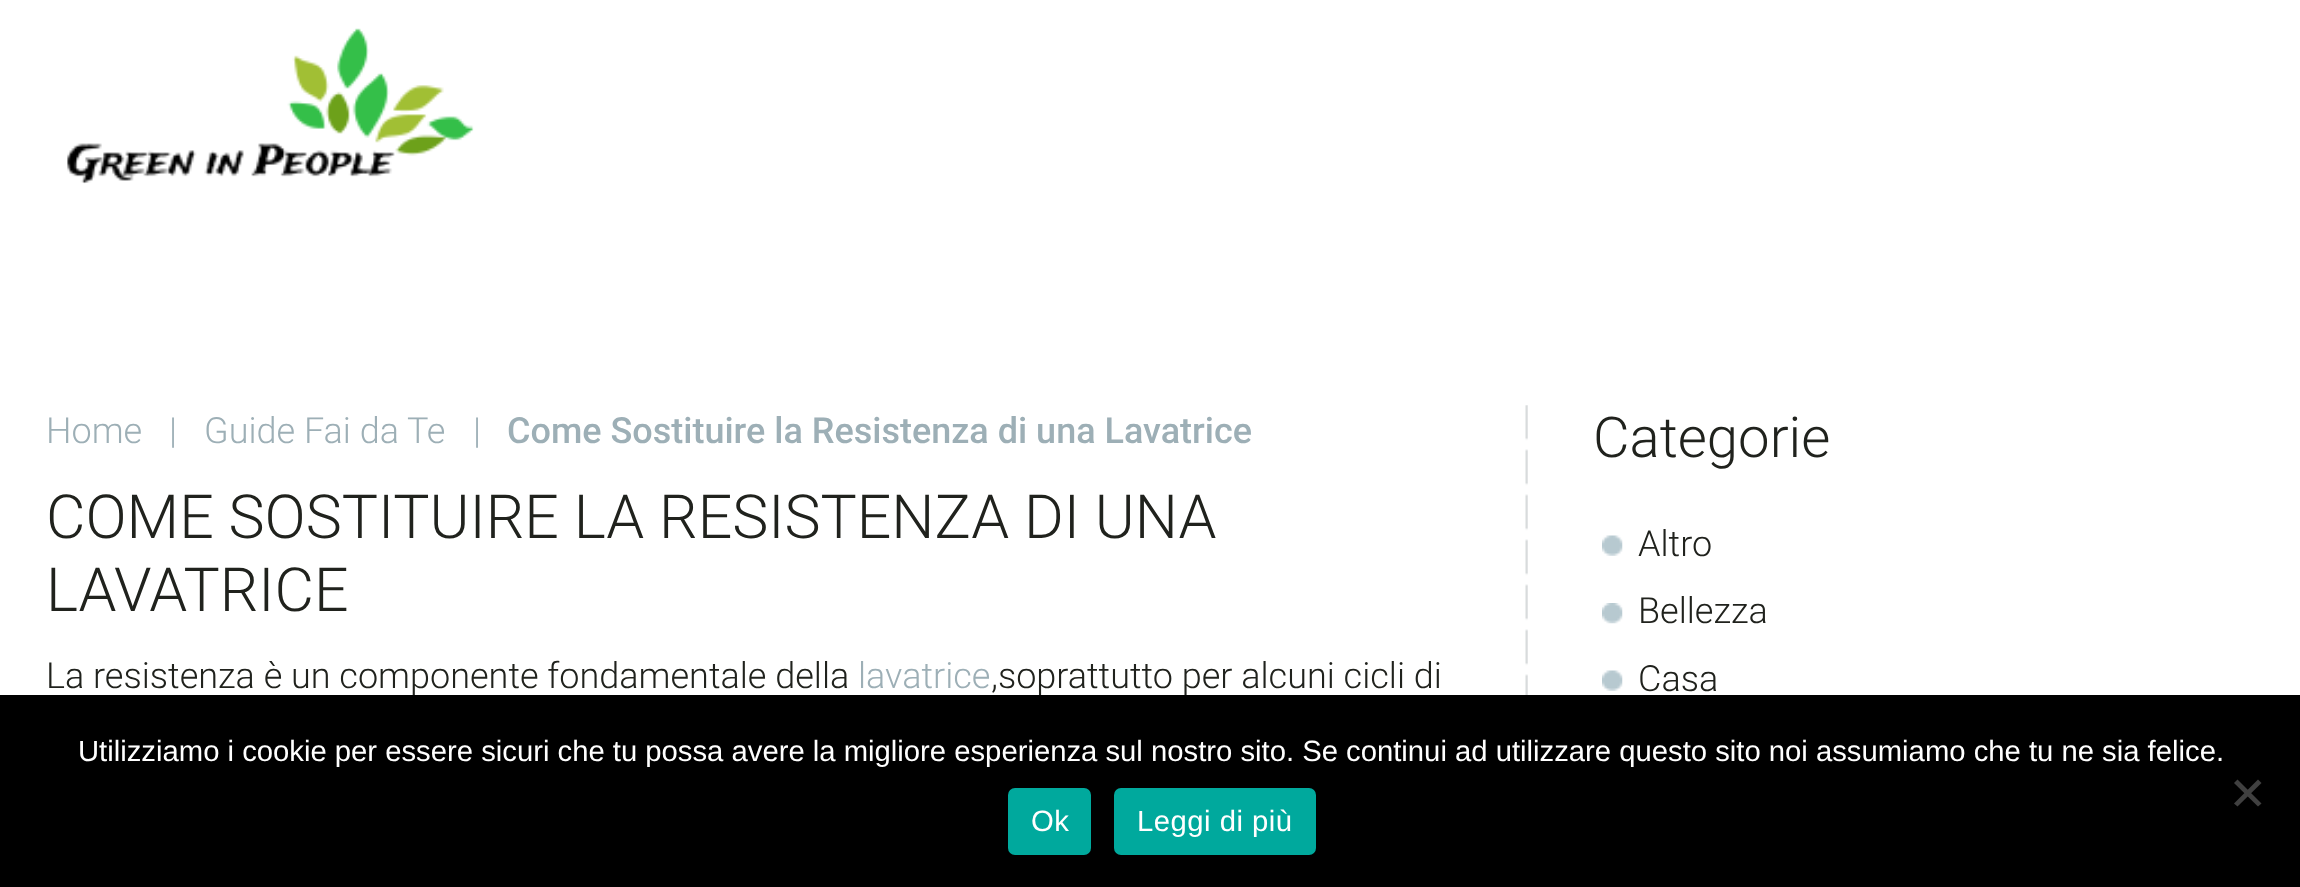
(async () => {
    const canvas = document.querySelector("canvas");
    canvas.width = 2300;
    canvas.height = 887;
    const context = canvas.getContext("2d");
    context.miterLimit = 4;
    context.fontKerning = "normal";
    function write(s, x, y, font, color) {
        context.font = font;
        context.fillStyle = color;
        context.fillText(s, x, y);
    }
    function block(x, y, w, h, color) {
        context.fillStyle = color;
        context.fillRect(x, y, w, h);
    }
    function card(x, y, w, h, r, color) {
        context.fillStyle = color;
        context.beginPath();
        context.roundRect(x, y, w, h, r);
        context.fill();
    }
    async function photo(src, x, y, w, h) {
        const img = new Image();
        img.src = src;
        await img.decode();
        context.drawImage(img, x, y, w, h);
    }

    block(0, 0, 2300, 887, "rgb(255, 255, 255)");
    await photo("media/1.png", 67, 28, 407, 156);
    await photo("media/2.png", 1525, 405, 3, 290);
    write("Home", 46, 443, "300 36px Roboto", "rgb(157, 175, 182)");
    write("|", 169, 443, "300 36px Roboto", "rgb(157, 175, 182)");
    write("Guide Fai da Te", 204, 443, "300 36px Roboto", "rgb(157, 175, 182)");
    write("|", 473, 443, "300 36px Roboto", "rgb(157, 175, 182)");
    write("Come Sostituire la Resistenza di una Lavatrice", 507, 443, "500 36px Roboto", "rgb(157, 175, 182)");
    write("COME SOSTITUIRE LA RESISTENZA DI UNA", 46, 538, "300 60.75px Roboto", "rgb(32, 34, 29)");
    write("LAVATRICE", 46, 611, "300 60.75px Roboto", "rgb(32, 34, 29)");
    write("La resistenza è un componente fondamentale della", 46, 688, "300 36px Roboto", "rgb(32, 34, 29)");
    write("lavatrice", 858, 688, "300 36px Roboto", "rgb(157, 175, 182)");
    write(",soprattutto per alcuni cicli di", 991, 688, "300 36px Roboto", "rgb(32, 34, 29)");
    write("Categorie", 1593, 457, "300 56.25px Roboto", "rgb(32, 34, 29)");
    await photo("media/3.png", 1602, 535, 21, 21);
    write("Altro", 1638, 556, "300 36px Roboto", "rgb(32, 34, 29)");
    await photo("media/4.png", 1602, 603, 21, 21);
    write("Bellezza", 1638, 623, "300 36px Roboto", "rgb(32, 34, 29)");
    await photo("media/3.png", 1602, 670, 21, 21);
    write("Casa", 1638, 691, "300 36px Roboto", "rgb(32, 34, 29)");
    block(0, 695, 2300, 192, "rgb(0, 0, 0)");
    write("Utilizziamo i cookie per essere sicuri che tu possa avere la migliore esperienza sul nostro sito. Se continui ad utilizzare questo sito noi assumiamo che tu ne sia felice.", 78, 761, "29.25px Liberation Sans", "rgb(255, 255, 255)");
    context.fillStyle = "rgb(64, 64, 64)";
    context.beginPath();
    context.moveTo(2258, 779.5);
    context.lineTo(2261.5, 783);
    context.lineTo(2237.5, 806.5);
    context.lineTo(2234, 803.5);
    context.closePath();
    context.fill();
    context.beginPath();
    context.moveTo(2234, 783);
    context.lineTo(2237.5, 779.5);
    context.lineTo(2261.5, 803.5);
    context.lineTo(2258, 806.5);
    context.closePath();
    context.fill();
    card(1008, 788, 83, 67, 7, "rgb(0, 169, 157)");
    context.letterSpacing = "0.5px";
    write("Ok", 1031, 831, "29.25px Liberation Sans", "rgb(255, 255, 255)");
    card(1114, 788, 202, 67, 7, "rgb(0, 169, 157)");
    write("Leggi di più", 1137, 831, "29.25px Liberation Sans", "rgb(255, 255, 255)");
})();
